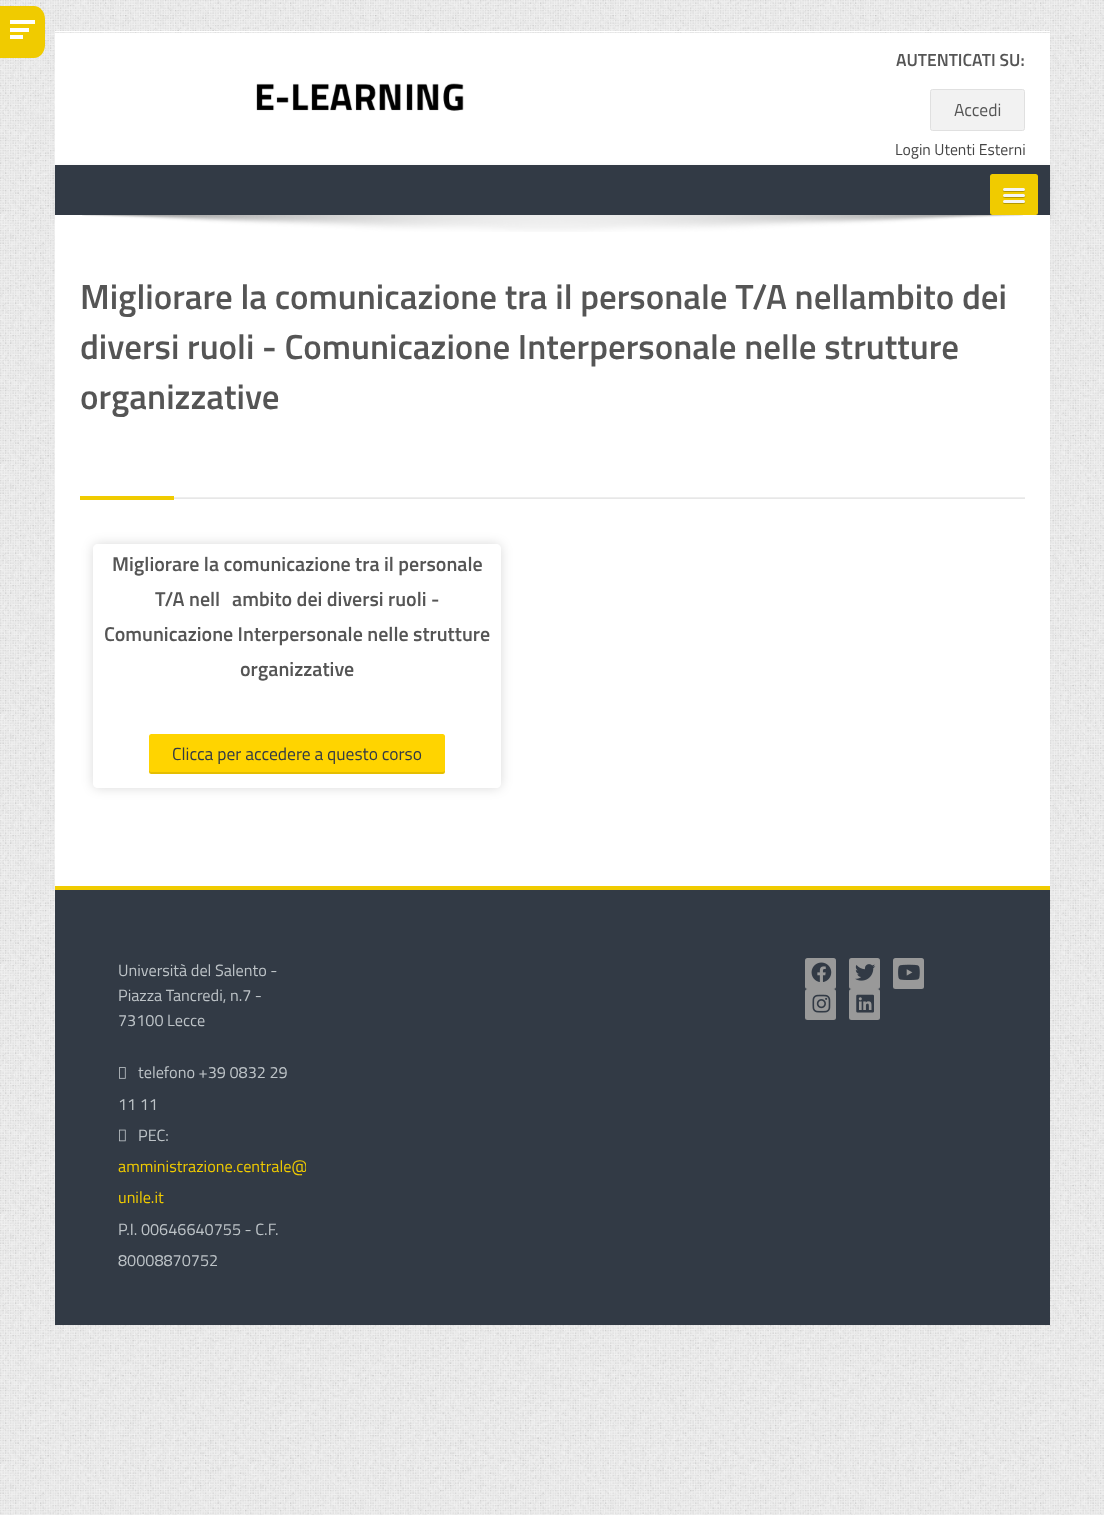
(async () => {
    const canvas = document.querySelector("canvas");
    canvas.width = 1104;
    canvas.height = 1515;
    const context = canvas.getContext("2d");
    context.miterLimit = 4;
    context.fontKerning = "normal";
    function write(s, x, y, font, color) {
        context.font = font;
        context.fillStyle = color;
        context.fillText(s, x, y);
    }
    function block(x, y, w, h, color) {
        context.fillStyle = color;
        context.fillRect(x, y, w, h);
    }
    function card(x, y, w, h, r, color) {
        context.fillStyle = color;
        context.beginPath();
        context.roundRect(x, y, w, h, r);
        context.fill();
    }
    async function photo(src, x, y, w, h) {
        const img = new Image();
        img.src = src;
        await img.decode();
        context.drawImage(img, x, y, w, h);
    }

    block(0, 0, 1104, 1515, "rgb(255, 255, 255)");
    await photo("media/1.png", 0, 0, 1104, 1515);
    context.fillStyle = "rgb(240, 203, 0)";
    context.beginPath();
    context.moveTo(0, 6);
    context.lineTo(34, 6);
    context.bezierCurveTo(40, 6, 45, 12, 45, 19);
    context.lineTo(45, 45);
    context.bezierCurveTo(45, 52, 40, 58, 34, 58);
    context.lineTo(0, 58);
    context.closePath();
    context.fill();
    block(10, 20, 25, 4, "rgb(255, 255, 255)");
    block(10, 28, 19, 4, "rgb(255, 255, 255)");
    block(10, 35, 13, 4, "rgb(255, 255, 255)");
    block(55, 31, 995, 1, "rgb(255, 255, 255)");
    block(55, 33, 995, 132, "rgb(255, 255, 255)");
    await photo("media/2.png", 256, 83, 208, 28);
    write("AUTENTICATI SU:", 896, 66, "600 17.5px Titillium Web", "rgb(85, 85, 85)");
    context.fillStyle = "rgb(242, 242, 242)";
    context.beginPath();
    context.roundRect(930.5, 89.5, 94, 41, 2);
    context.fill();
    context.strokeStyle = "rgb(224, 224, 224)";
    context.stroke();
    write("Accedi", 954, 116, "17.5px Titillium Web", "rgb(85, 85, 85)");
    context.fillStyle = "rgba(0, 0, 0, 0.07)";
    context.filter = "blur(2.5px)";
    context.beginPath();
    context.rect(55, 166, 995, 50);
    context.fill();
    context.filter = "none";
    write("Login Utenti Esterni", 895, 155, "15.75px Titillium Web", "rgb(68, 68, 68)");
    block(55, 165, 995, 50, "rgb(50, 58, 69)");
    card(990, 174, 48, 41, 2.5, "rgb(240, 203, 0)");
    context.fillStyle = "rgb(180, 152, 0)";
    context.beginPath();
    context.moveTo(1003, 190);
    context.bezierCurveTo(1002, 192.5, 1007, 192, 1007.5, 192);
    context.lineTo(1020.5, 192);
    context.bezierCurveTo(1020.5, 192, 1027, 192.5, 1024.5, 189.5);
    context.lineTo(1024, 190);
    context.closePath();
    context.fill();
    card(1003, 188, 22, 3, 1.5, "rgb(245, 245, 245)");
    context.fillStyle = "rgb(180, 152, 0)";
    context.beginPath();
    context.moveTo(1003, 196);
    context.bezierCurveTo(1002.5, 198.5, 1007, 198, 1007.5, 198);
    context.lineTo(1020.5, 198);
    context.bezierCurveTo(1021, 198, 1026.5, 198.5, 1025, 195.5);
    context.lineTo(1024, 196);
    context.closePath();
    context.fill();
    card(1003, 194, 22, 3, 1.5, "rgb(245, 245, 245)");
    context.fillStyle = "rgb(180, 152, 0)";
    context.beginPath();
    context.moveTo(1003, 202.5);
    context.bezierCurveTo(1002.5, 204.5, 1006.5, 204, 1007.5, 204);
    context.lineTo(1020.5, 204);
    context.bezierCurveTo(1021, 204, 1026, 204.5, 1025, 202);
    context.lineTo(1024, 202.5);
    context.bezierCurveTo(1022, 202.5, 1003.5, 202.5, 1003, 202.5);
    context.closePath();
    context.fill();
    card(1003, 200, 22, 3, 1.5, "rgb(245, 245, 245)");
    block(55, 215, 995, 671, "rgb(255, 255, 255)");
    await photo("media/3.png", 82, 215, 941, 17);
    write("Migliorare la comunicazione tra il personale T/A nellambito dei", 80, 309, "600 34.95px Titillium Web", "rgb(85, 85, 85)");
    write("diversi ruoli - Comunicazione Interpersonale nelle strutture", 80, 359, "600 34.95px Titillium Web", "rgb(85, 85, 85)");
    write("organizzative", 80, 409, "600 34.95px Titillium Web", "rgb(85, 85, 85)");
    await photo("media/4.png", 174, 497, 851, 2);
    block(80, 496, 94, 4, "rgb(240, 203, 0)");
    context.save();
    context.beginPath();
    context.moveTo(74, 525);
    context.lineTo(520, 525);
    context.lineTo(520, 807);
    context.lineTo(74, 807);
    context.closePath();
    context.moveTo(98, 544);
    context.lineTo(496, 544);
    context.bezierCurveTo(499, 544, 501, 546, 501, 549);
    context.lineTo(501, 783);
    context.bezierCurveTo(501, 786, 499, 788, 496, 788);
    context.lineTo(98, 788);
    context.bezierCurveTo(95, 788, 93, 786, 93, 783);
    context.lineTo(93, 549);
    context.bezierCurveTo(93, 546, 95, 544, 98, 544);
    context.closePath();
    context.clip("evenodd");
    context.fillStyle = "rgba(0, 0, 0, 0.15)";
    context.filter = "blur(6px)";
    context.beginPath();
    context.roundRect(93, 544, 408, 244, 5);
    context.fill();
    context.filter = "none";
    context.restore();
    context.beginPath();
    context.roundRect(93.5, 544.5, 407, 243, 4.5);
    context.strokeStyle = "rgb(255, 255, 255)";
    context.stroke();
    write("Migliorare la comunicazione tra il personale", 112, 571, "600 20px Titillium Web", "rgb(85, 85, 85)");
    write("T/A nell", 155, 606, "600 20px Titillium Web", "rgb(85, 85, 85)");
    write("ambito dei diversi ruoli -", 232, 606, "600 20px Titillium Web", "rgb(85, 85, 85)");
    write("Comunicazione Interpersonale nelle strutture", 104, 641, "600 20px Titillium Web", "rgb(85, 85, 85)");
    write("organizzative", 240, 676, "600 20px Titillium Web", "rgb(85, 85, 85)");
    card(149, 734, 296, 40, 2.5, "rgb(255, 212, 0)");
    context.fillStyle = "rgba(0, 0, 0, 0.1)";
    context.beginPath();
    context.moveTo(149, 770);
    context.bezierCurveTo(149, 772, 149, 774, 152, 774);
    context.lineTo(442, 774);
    context.bezierCurveTo(445, 774, 445, 772, 445, 770);
    context.bezierCurveTo(445, 771, 444, 772, 442, 772);
    context.lineTo(151, 772);
    context.bezierCurveTo(150, 772, 149, 771, 149, 770);
    context.closePath();
    context.fill();
    write("Clicca per accedere a questo corso", 172, 760, "17.5px Titillium Web", "rgb(50, 58, 69)");
    block(55, 890, 995, 435, "rgb(50, 58, 69)");
    block(55, 886, 995, 4, "rgb(240, 203, 0)");
    write("Università del Salento -", 118, 976, "16.25px Titillium Web", "rgb(189, 195, 199)");
    write("Piazza Tancredi, n.7 -", 118, 1001, "16.25px Titillium Web", "rgb(189, 195, 199)");
    write("73100 Lecce", 118, 1026, "16.25px Titillium Web", "rgb(189, 195, 199)");
    await photo("media/5.png", 119, 1067, 7, 12);
    write("telefono +39 0832 29", 138, 1078, "16.25px Titillium Web", "rgb(189, 195, 199)");
    write("11 11", 118, 1110, "16.25px Titillium Web", "rgb(189, 195, 199)");
    await photo("media/6.png", 119, 1129, 7, 13);
    write("PEC:", 138, 1141, "16.25px Titillium Web", "rgb(189, 195, 199)");
    context.save();
    context.beginPath();
    context.rect(118, 958, 188, 320);
    context.clip();
    write("amministrazione.centrale@", 118, 1172, "16.25px Titillium Web", "rgb(240, 203, 0)");
    context.restore();
    write("unile.it", 118, 1203, "16.25px Titillium Web", "rgb(240, 203, 0)");
    write("P.I. 00646640755 - C.F.", 118, 1235, "16.25px Titillium Web", "rgb(189, 195, 199)");
    write("80008870752", 118, 1266, "16.25px Titillium Web", "rgb(189, 195, 199)");
    card(805, 958, 31, 31, 2.5, "rgb(153, 153, 153)");
    await photo("media/7.png", 811, 962, 21, 20);
    card(849, 958, 31, 31, 2.5, "rgb(153, 153, 153)");
    await photo("media/8.png", 855, 964, 21, 17);
    card(893, 958, 31, 31, 2.5, "rgb(153, 153, 153)");
    await photo("media/9.png", 898, 964, 22, 16);
    card(805, 989, 31, 31, 2.5, "rgb(153, 153, 153)");
    await photo("media/10.png", 812, 994, 19, 19);
    card(849, 989, 31, 31, 2.5, "rgb(153, 153, 153)");
    await photo("media/11.png", 856, 994, 18, 19);
})();
